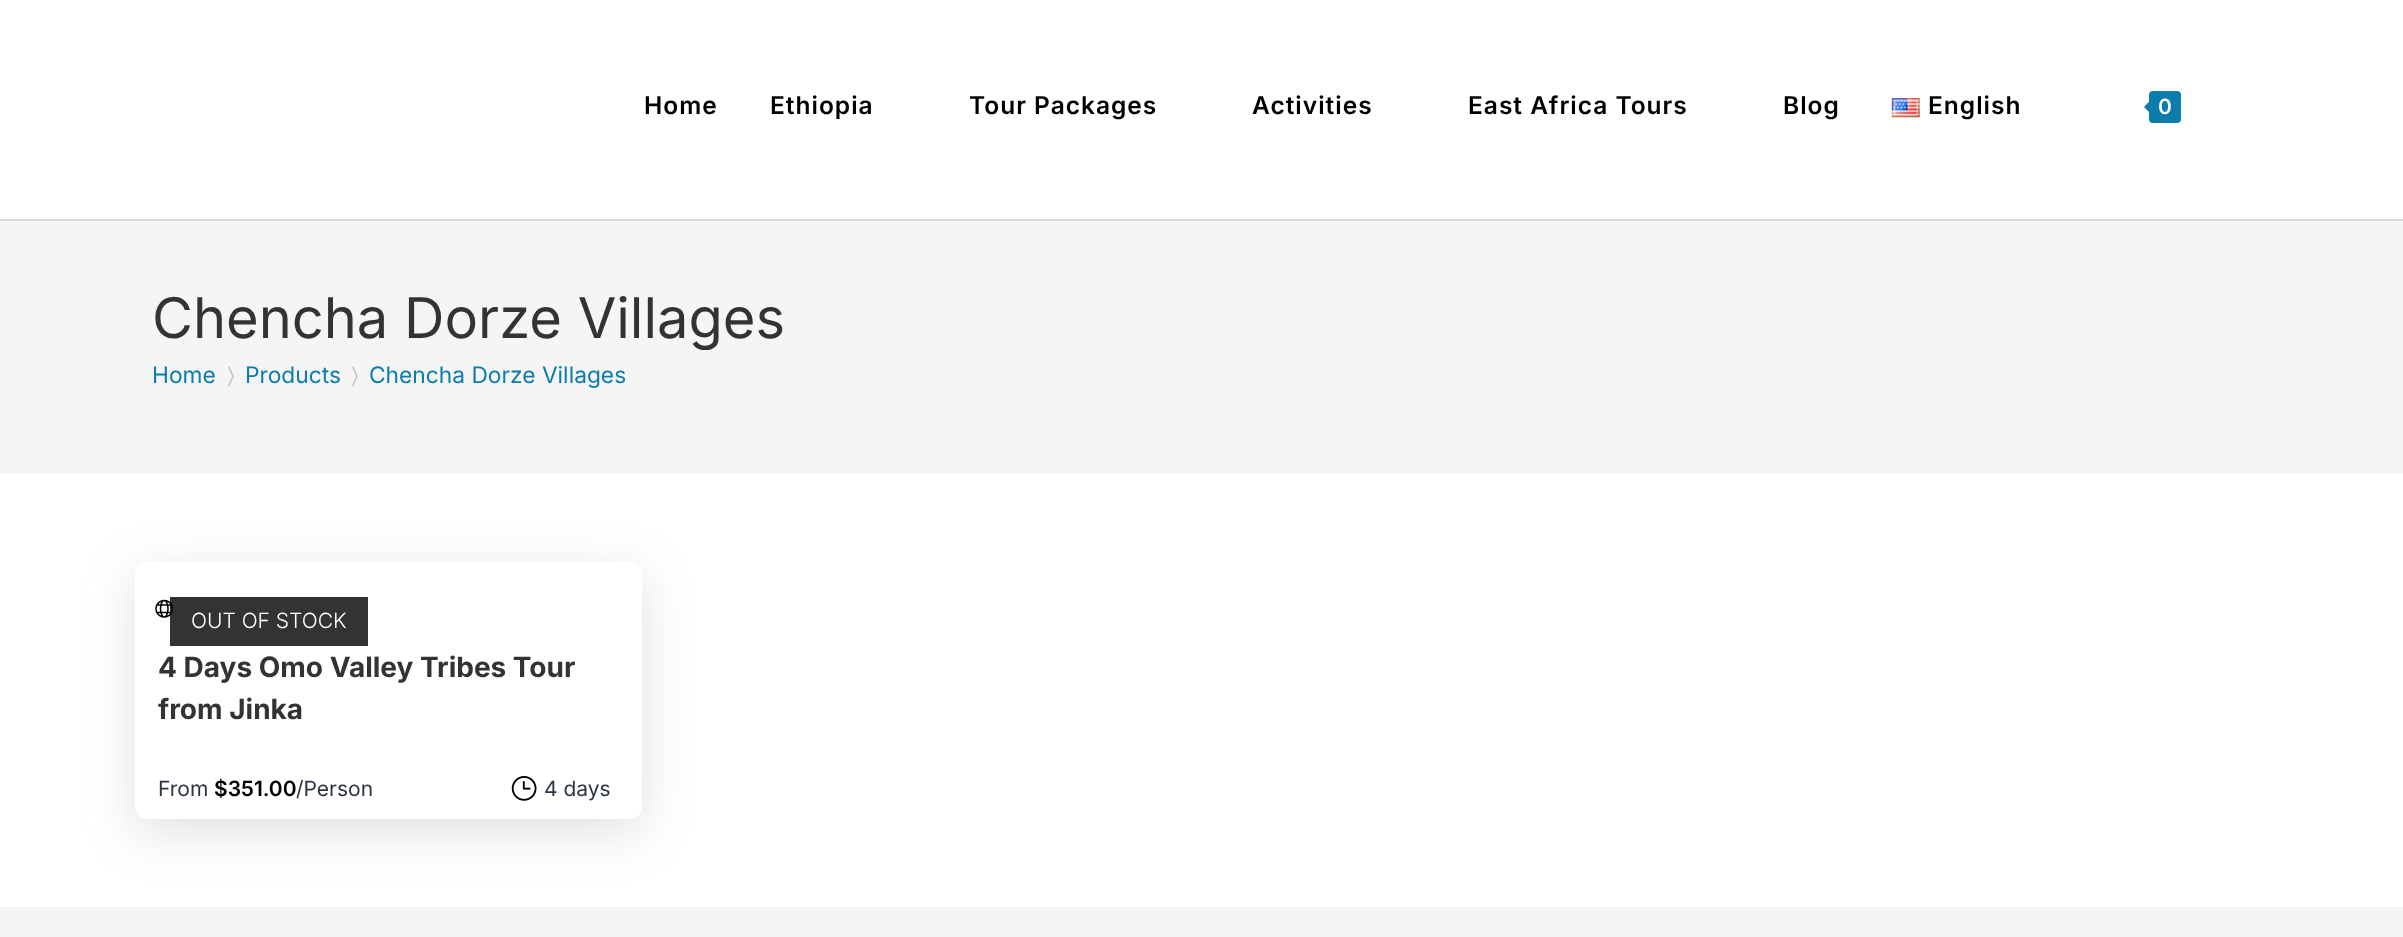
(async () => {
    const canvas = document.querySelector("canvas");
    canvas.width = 2403;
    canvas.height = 937;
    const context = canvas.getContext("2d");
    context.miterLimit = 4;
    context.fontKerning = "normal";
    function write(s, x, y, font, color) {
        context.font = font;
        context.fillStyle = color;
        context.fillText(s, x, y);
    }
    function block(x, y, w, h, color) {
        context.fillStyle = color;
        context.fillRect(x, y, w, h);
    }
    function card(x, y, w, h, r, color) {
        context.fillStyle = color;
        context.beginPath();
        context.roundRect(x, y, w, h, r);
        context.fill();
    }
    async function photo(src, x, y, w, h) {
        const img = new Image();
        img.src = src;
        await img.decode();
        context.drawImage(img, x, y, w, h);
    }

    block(0, 0, 2403, 937, "rgb(255, 255, 255)");
    block(0, 219, 2403, 2, "rgb(217, 217, 217)");
    context.letterSpacing = "1px";
    write("Home", 644, 114, "600 24.5px Inter", "rgb(0, 0, 0)");
    write("Ethiopia", 770, 114, "600 24.5px Inter", "rgb(0, 0, 0)");
    write("Tour Packages", 969, 114, "600 24.5px Inter", "rgb(0, 0, 0)");
    write("Activities", 1252, 114, "600 24.5px Inter", "rgb(0, 0, 0)");
    write("East Africa Tours", 1468, 114, "600 24.5px Inter", "rgb(0, 0, 0)");
    write("Blog", 1783, 114, "600 24.5px Inter", "rgb(0, 0, 0)");
    await photo("media/1.png", 1891, 98, 29, 20);
    write("English", 1928, 114, "600 24.5px Inter", "rgb(0, 0, 0)");
    card(2149, 91, 32, 32, 4, "rgb(11, 124, 172)");
    context.beginPath();
    context.moveTo(2152.5, 98);
    context.lineTo(2152.5, 115.5);
    context.lineTo(2144, 107);
    context.closePath();
    context.fill();
    context.letterSpacing = "0px";
    write("0", 2158, 114, "600 21px Inter", "rgb(255, 255, 255)");
    block(0, 221, 2403, 253, "rgb(245, 245, 245)");
    write("Chencha Dorze Villages", 152, 338, "56px Inter", "rgb(51, 51, 51)");
    write("Home", 152, 383, "22.75px Inter", "rgb(11, 124, 172)");
    write("〉", 227, 383, "22.75px FreeSans", "rgb(198, 198, 198)");
    write("Products", 245, 383, "22.75px Inter", "rgb(11, 124, 172)");
    write("〉", 351, 383, "22.75px FreeSans", "rgb(198, 198, 198)");
    write("Chencha Dorze Villages", 369, 383, "22.75px Inter", "rgb(11, 124, 172)");
    context.save();
    context.beginPath();
    context.moveTo(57, 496);
    context.lineTo(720, 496);
    context.lineTo(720, 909);
    context.lineTo(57, 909);
    context.closePath();
    context.moveTo(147, 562);
    context.lineTo(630, 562);
    context.bezierCurveTo(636.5, 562, 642, 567.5, 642, 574);
    context.lineTo(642, 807);
    context.bezierCurveTo(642, 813.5, 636.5, 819, 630, 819);
    context.lineTo(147, 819);
    context.bezierCurveTo(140.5, 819, 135, 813.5, 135, 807);
    context.lineTo(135, 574);
    context.bezierCurveTo(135, 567.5, 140.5, 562, 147, 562);
    context.closePath();
    context.clip("evenodd");
    context.fillStyle = "rgba(100, 100, 111, 0.2)";
    context.filter = "blur(25.5px)";
    context.beginPath();
    context.roundRect(135, 574, 507, 257, 12);
    context.fill();
    context.filter = "none";
    context.restore();
    await photo("media/2.png", 155, 599, 18, 19);
    block(170, 597, 198, 49, "rgba(0, 0, 0, 0.8)");
    write("OUT OF STOCK", 191, 628, "300 21px Inter", "rgb(255, 255, 255)");
    write("4 Days Omo Valley Tribes Tour", 158, 677, "bold 28px Inter", "rgb(51, 51, 51)");
    write("from Jinka", 158, 719, "bold 28px Inter", "rgb(51, 51, 51)");
    write("From", 158, 796, "21px Inter", "rgb(44, 53, 67)");
    write("$351.00", 214, 796, "600 21px Inter", "rgb(0, 0, 0)");
    write("/Person", 296, 796, "21px Inter", "rgb(44, 53, 67)");
    await photo("media/3.png", 511, 776, 26, 25);
    write("4 days", 544, 796, "21px Inter", "rgb(44, 53, 67)");
    block(0, 907, 2403, 30, "rgb(244, 244, 244)");
})();
